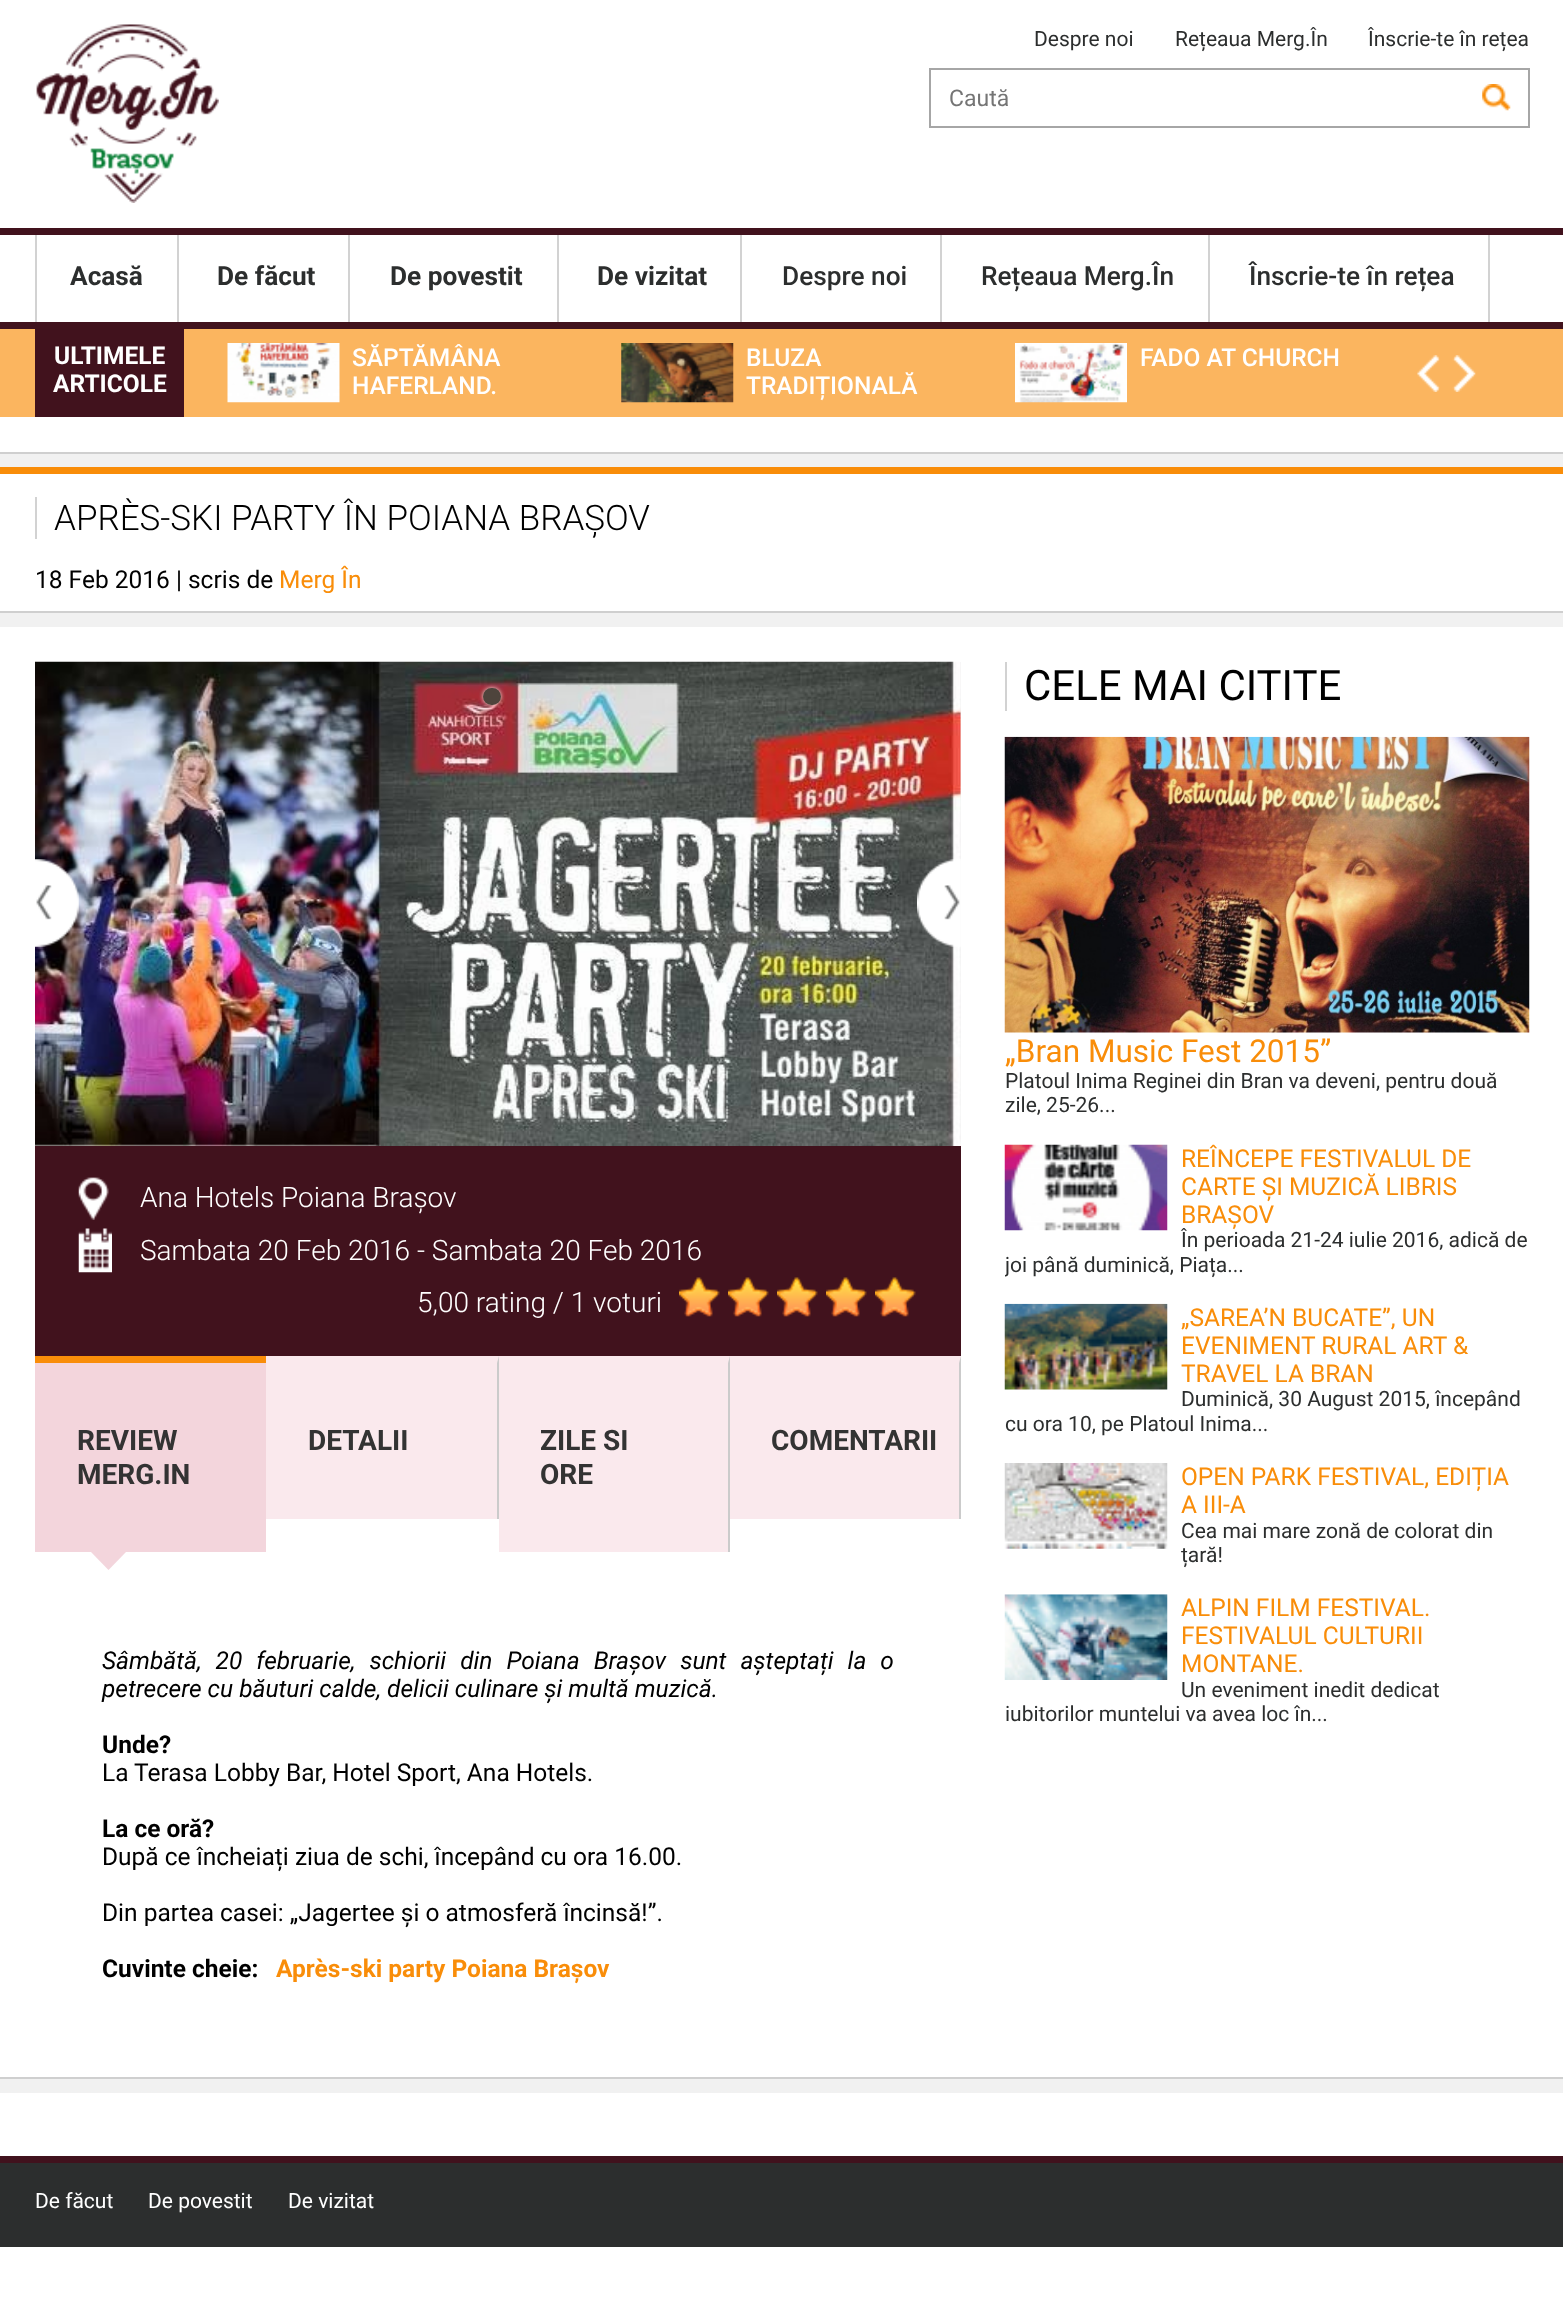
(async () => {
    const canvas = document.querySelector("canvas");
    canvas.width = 1563;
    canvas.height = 2302;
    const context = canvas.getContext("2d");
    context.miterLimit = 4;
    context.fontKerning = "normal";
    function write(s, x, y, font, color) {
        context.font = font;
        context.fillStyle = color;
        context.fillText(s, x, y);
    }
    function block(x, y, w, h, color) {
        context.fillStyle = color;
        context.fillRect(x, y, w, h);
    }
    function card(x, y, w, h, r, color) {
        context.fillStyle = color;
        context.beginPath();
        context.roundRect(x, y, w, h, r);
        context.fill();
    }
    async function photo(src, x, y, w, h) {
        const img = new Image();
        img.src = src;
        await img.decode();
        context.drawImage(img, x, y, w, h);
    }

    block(0, 0, 1563, 2302, "rgb(255, 255, 255)");
    await photo("media/1.png", 36, 24, 183, 179);
    write("Despre noi", 1034, 46, "21px Roboto", "rgb(44, 46, 46)");
    write("Rețeaua Merg.În", 1175, 46, "21px Roboto", "rgb(44, 46, 46)");
    write("Înscrie-te în rețea", 1368, 46, "21px Roboto", "rgb(44, 46, 46)");
    context.strokeStyle = "rgb(166, 166, 166)";
    context.lineWidth = 2;
    context.strokeRect(930, 69, 599, 58);
    write("Caută", 949, 106, "23px Roboto", "rgb(117, 117, 117)");
    await photo("media/2.png", 1482, 84, 29, 27);
    block(0, 228, 1563, 7, "rgb(65, 18, 29)");
    block(35, 235, 2, 87, "rgb(210, 210, 210)");
    block(177, 235, 2, 87, "rgb(210, 210, 210)");
    write("Acasă", 70, 285, "bold 26.25px Roboto", "rgb(44, 46, 46)");
    block(348, 235, 2, 87, "rgb(210, 210, 210)");
    write("De făcut", 217, 285, "bold 26.25px Roboto", "rgb(44, 46, 46)");
    block(557, 235, 2, 87, "rgb(210, 210, 210)");
    write("De povestit", 390, 285, "bold 26.25px Roboto", "rgb(44, 46, 46)");
    block(740, 235, 2, 87, "rgb(210, 210, 210)");
    write("De vizitat", 597, 285, "bold 26.25px Roboto", "rgb(44, 46, 46)");
    block(940, 235, 2, 87, "rgb(210, 210, 210)");
    write("Despre noi", 782, 285, "500 26.25px Roboto", "rgb(44, 46, 46)");
    block(1208, 235, 2, 87, "rgb(210, 210, 210)");
    write("Rețeaua Merg.În", 981, 285, "500 26.25px Roboto", "rgb(44, 46, 46)");
    block(1488, 235, 2, 87, "rgb(210, 210, 210)");
    write("Înscrie-te în rețea", 1249, 285, "500 26.25px Roboto", "rgb(44, 46, 46)");
    block(0, 329, 1563, 88, "rgb(251, 181, 95)");
    block(0, 322, 1563, 7, "rgb(65, 18, 29)");
    block(35, 329, 149, 88, "rgb(65, 18, 29)");
    write("ULTIMELE", 54, 364, "bold 24.5px Roboto", "rgb(255, 255, 255)");
    write("ARTICOLE", 53, 392, "bold 24.5px Roboto", "rgb(255, 255, 255)");
    await photo("media/3.png", 227, 343, 113, 60);
    write("SĂPTĂMÂNA", 352, 366, "500 24.5px Roboto", "rgb(255, 255, 255)");
    write("HAFERLAND.", 352, 394, "500 24.5px Roboto", "rgb(255, 255, 255)");
    await photo("media/4.png", 621, 343, 113, 60);
    write("BLUZA", 746, 366, "500 24.5px Roboto", "rgb(255, 255, 255)");
    write("TRADIȚIONALĂ", 746, 394, "500 24.5px Roboto", "rgb(255, 255, 255)");
    await photo("media/5.png", 1015, 343, 112, 60);
    write("FADO AT CHURCH", 1140, 366, "500 24.5px Roboto", "rgb(255, 255, 255)");
    await photo("media/6.png", 1417, 355, 23, 37);
    await photo("media/7.png", 1452, 355, 24, 37);
    block(0, 454, 1563, 13, "rgb(241, 241, 241)");
    block(0, 452, 1563, 2, "rgb(207, 207, 207)");
    block(0, 467, 1563, 7, "rgb(249, 141, 9)");
    block(35, 497, 2, 42, "rgb(210, 210, 210)");
    write("APRÈS-SKI PARTY ÎN POIANA BRAȘOV", 54, 530, "300 35px Roboto", "rgb(0, 0, 0)");
    write("18 Feb 2016 | scris de", 35, 588, "24.5px Roboto", "rgb(0, 0, 0)");
    write("Merg În", 279, 588, "24.5px Roboto", "rgb(249, 141, 9)");
    block(0, 613, 1563, 14, "rgb(241, 241, 241)");
    block(0, 611, 1563, 2, "rgb(207, 207, 207)");
    block(960, 662, 1, 484, "rgb(238, 238, 238)");
    await photo("media/8.png", 35, 661, 926, 485);
    context.fillStyle = "rgb(240, 239, 231)";
    context.filter = "blur(2px)";
    context.beginPath();
    context.roundRect(483, 688, 18, 17, 8.5);
    context.fill();
    context.filter = "none";
    card(483, 688, 18, 17, 8.5, "rgb(78, 68, 60)");
    await photo("media/9.png", 35, 859, 44, 88);
    await photo("media/10.png", 917, 859, 44, 88);
    block(35, 1146, 926, 210, "rgb(65, 18, 29)");
    await photo("media/11.png", 78, 1177, 31, 43);
    write("Ana Hotels Poiana Brașov", 140, 1207, "300 28px Roboto", "rgb(255, 255, 255)");
    await photo("media/12.png", 78, 1228, 34, 45);
    write("Sambata 20 Feb 2016 - Sambata 20 Feb 2016", 140, 1260, "300 28px Roboto", "rgb(255, 255, 255)");
    write("5,00 rating / 1 voturi", 417, 1312, "300 28px Roboto", "rgb(255, 255, 255)");
    await photo("media/13.png", 679, 1277, 41, 40);
    await photo("media/14.png", 728, 1277, 41, 40);
    await photo("media/15.png", 777, 1277, 41, 40);
    await photo("media/16.png", 826, 1277, 41, 40);
    await photo("media/16.png", 875, 1277, 41, 40);
    block(35, 1363, 231, 189, "rgb(243, 213, 220)");
    block(35, 1356, 231, 7, "rgb(249, 141, 9)");
    write("REVIEW", 77, 1450, "bold 28px Roboto", "rgb(51, 51, 51)");
    write("MERG.IN", 77, 1484, "bold 28px Roboto", "rgb(51, 51, 51)");
    context.fillStyle = "rgb(243, 213, 220)";
    context.beginPath();
    context.moveTo(91, 1552);
    context.lineTo(126, 1552);
    context.lineTo(108.5, 1570);
    context.closePath();
    context.fill();
    block(266, 1356, 233, 163, "rgb(250, 233, 237)");
    context.fillStyle = "rgb(203, 203, 203)";
    context.beginPath();
    context.moveTo(499, 1356);
    context.lineTo(499, 1519);
    context.lineTo(497, 1519);
    context.lineTo(497, 1363);
    context.closePath();
    context.fill();
    write("DETALII", 308, 1450, "bold 28px Roboto", "rgb(51, 51, 51)");
    block(499, 1356, 231, 196, "rgb(250, 233, 237)");
    context.fillStyle = "rgb(203, 203, 203)";
    context.beginPath();
    context.moveTo(730, 1356);
    context.lineTo(730, 1552);
    context.lineTo(728, 1552);
    context.lineTo(728, 1363);
    context.closePath();
    context.fill();
    write("ZILE SI", 540, 1450, "bold 28px Roboto", "rgb(51, 51, 51)");
    write("ORE", 540, 1484, "bold 28px Roboto", "rgb(51, 51, 51)");
    block(730, 1356, 231, 163, "rgb(250, 233, 237)");
    context.fillStyle = "rgb(203, 203, 203)";
    context.beginPath();
    context.moveTo(961, 1356);
    context.lineTo(961, 1519);
    context.lineTo(959, 1519);
    context.lineTo(959, 1363);
    context.closePath();
    context.fill();
    write("COMENTARII", 771, 1450, "bold 28px Roboto", "rgb(51, 51, 51)");
    context.wordSpacing = "8px";
    write("Sâmbătă, 20 februarie, schiorii din Poiana Brașov sunt așteptați la o", 102, 1669, "italic 24.5px Roboto", "rgb(0, 0, 0)");
    context.wordSpacing = "0px";
    write("petrecere cu băuturi calde, delicii culinare și multă muzică.", 102, 1697, "italic 24.5px Roboto", "rgb(0, 0, 0)");
    write("Unde?", 102, 1753, "bold 24.5px Roboto", "rgb(0, 0, 0)");
    write("La Terasa Lobby Bar, Hotel Sport, Ana Hotels.", 102, 1781, "24.5px Roboto", "rgb(0, 0, 0)");
    write("La ce oră?", 102, 1837, "bold 24.5px Roboto", "rgb(0, 0, 0)");
    write("După ce încheiați ziua de schi, începând cu ora 16.00.", 102, 1865, "24.5px Roboto", "rgb(0, 0, 0)");
    write("Din partea casei: „Jagertee și o atmosferă încinsă!”.", 102, 1921, "24.5px Roboto", "rgb(0, 0, 0)");
    write("Cuvinte cheie:", 102, 1977, "bold 24.5px Roboto", "rgb(0, 0, 0)");
    write("Après-ski party Poiana Brașov", 276, 1977, "bold 24.5px Roboto", "rgb(249, 141, 9)");
    block(1005, 662, 2, 49, "rgb(210, 210, 210)");
    write("CELE MAI CITITE", 1024, 700, "42px Roboto", "rgb(0, 0, 0)");
    await photo("media/17.png", 1004, 736, 526, 297);
    write("„Bran Music Fest 2015”", 1005, 1062, "31.5px Roboto", "rgb(249, 141, 9)");
    write("Platoul Inima Reginei din Bran va deveni, pentru două", 1005, 1088, "21px Roboto", "rgb(44, 46, 46)");
    write("zile, 25-26...", 1005, 1112, "21px Roboto", "rgb(44, 46, 46)");
    await photo("media/18.png", 1004, 1144, 164, 87);
    write("REÎNCEPE FESTIVALUL DE", 1181, 1167, "24.5px Roboto", "rgb(249, 141, 9)");
    write("CARTE ȘI MUZICĂ LIBRIS", 1181, 1195, "24.5px Roboto", "rgb(249, 141, 9)");
    write("BRAȘOV", 1181, 1223, "24.5px Roboto", "rgb(249, 141, 9)");
    write("În perioada 21-24 iulie 2016, adică de", 1181, 1247, "21px Roboto", "rgb(44, 46, 46)");
    context.save();
    context.beginPath();
    context.rect(1005, 1145, 525, 133);
    context.clip();
    write("joi până duminică, Piața...", 1005, 1272, "21px Roboto", "rgb(44, 46, 46)");
    context.restore();
    await photo("media/19.png", 1004, 1303, 164, 87);
    write("„SAREA’N BUCATE”, UN", 1181, 1326, "24.5px Roboto", "rgb(249, 141, 9)");
    write("EVENIMENT RURAL ART &", 1181, 1354, "24.5px Roboto", "rgb(249, 141, 9)");
    write("TRAVEL LA BRAN", 1181, 1382, "24.5px Roboto", "rgb(249, 141, 9)");
    write("Duminică, 30 August 2015, începând", 1181, 1406, "21px Roboto", "rgb(44, 46, 46)");
    write("cu ora 10, pe Platoul Inima...", 1005, 1431, "21px Roboto", "rgb(44, 46, 46)");
    await photo("media/20.png", 1004, 1463, 164, 86);
    write("OPEN PARK FESTIVAL, EDIȚIA", 1181, 1485, "24.5px Roboto", "rgb(249, 141, 9)");
    write("A III-A", 1181, 1513, "24.5px Roboto", "rgb(249, 141, 9)");
    write("Cea mai mare zonă de colorat din", 1181, 1538, "21px Roboto", "rgb(44, 46, 46)");
    write("țară!", 1181, 1562, "21px Roboto", "rgb(44, 46, 46)");
    await photo("media/21.png", 1004, 1594, 164, 86);
    write("ALPIN FILM FESTIVAL.", 1181, 1616, "24.5px Roboto", "rgb(249, 141, 9)");
    write("FESTIVALUL CULTURII", 1181, 1644, "24.5px Roboto", "rgb(249, 141, 9)");
    write("MONTANE.", 1181, 1672, "24.5px Roboto", "rgb(249, 141, 9)");
    write("Un eveniment inedit dedicat", 1181, 1697, "21px Roboto", "rgb(44, 46, 46)");
    write("iubitorilor muntelui va avea loc în...", 1005, 1721, "21px Roboto", "rgb(44, 46, 46)");
    block(0, 2079, 1563, 14, "rgb(241, 241, 241)");
    block(0, 2077, 1563, 2, "rgb(207, 207, 207)");
    block(0, 2163, 1563, 84, "rgb(44, 46, 46)");
    block(0, 2156, 1563, 7, "rgb(65, 18, 29)");
    write("De făcut", 35, 2208, "21px Roboto", "rgb(255, 255, 255)");
    write("De povestit", 148, 2208, "21px Roboto", "rgb(255, 255, 255)");
    write("De vizitat", 288, 2208, "21px Roboto", "rgb(255, 255, 255)");
})();
